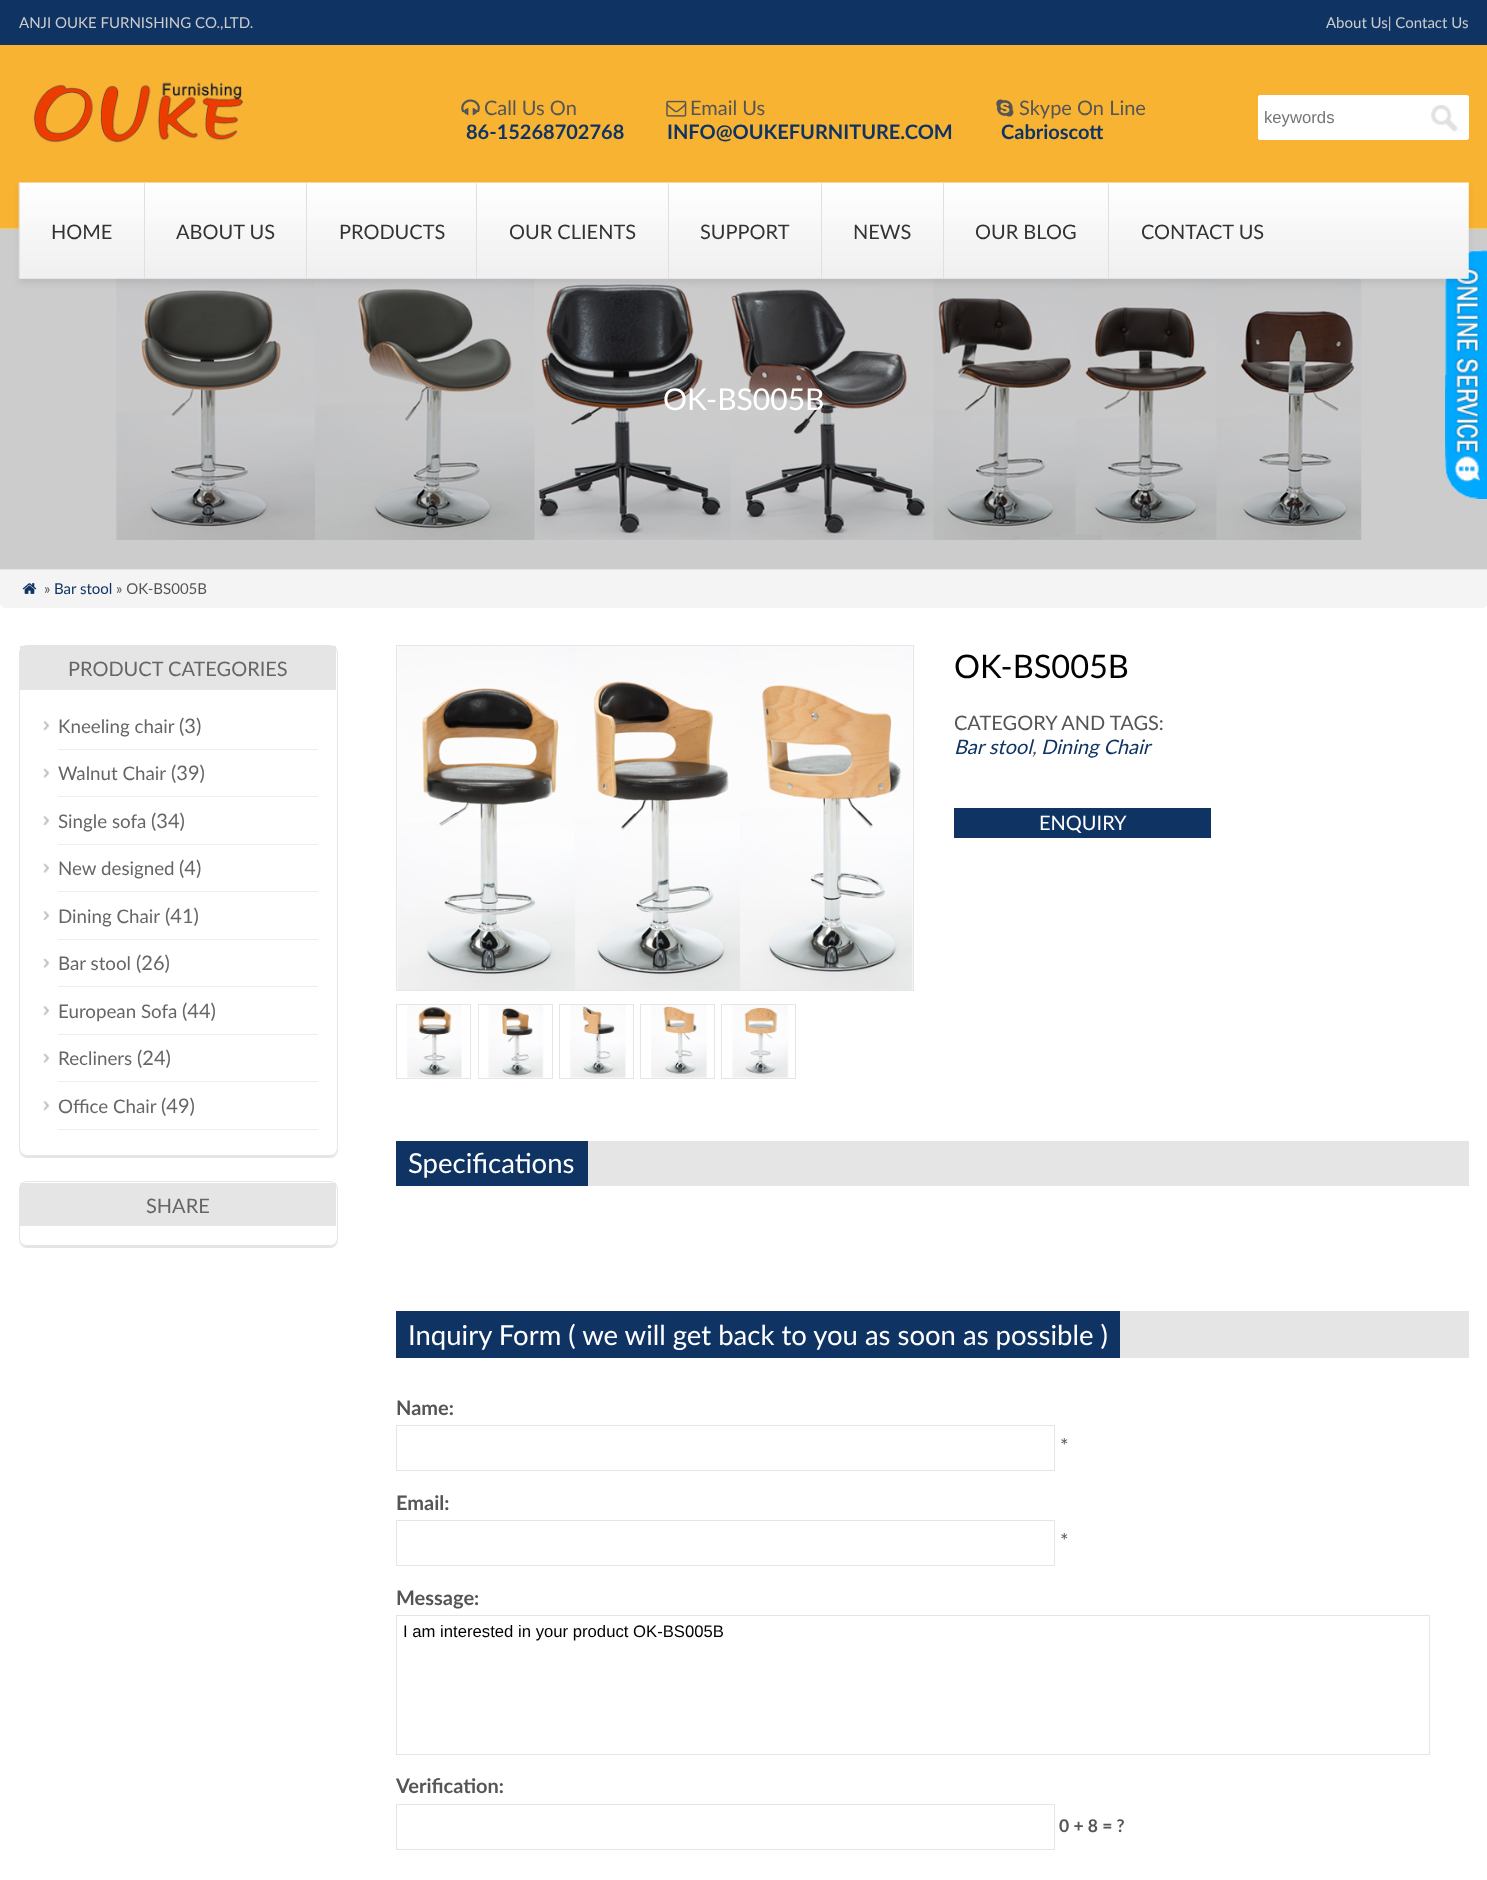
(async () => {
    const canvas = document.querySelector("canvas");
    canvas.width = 1487;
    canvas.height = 1880;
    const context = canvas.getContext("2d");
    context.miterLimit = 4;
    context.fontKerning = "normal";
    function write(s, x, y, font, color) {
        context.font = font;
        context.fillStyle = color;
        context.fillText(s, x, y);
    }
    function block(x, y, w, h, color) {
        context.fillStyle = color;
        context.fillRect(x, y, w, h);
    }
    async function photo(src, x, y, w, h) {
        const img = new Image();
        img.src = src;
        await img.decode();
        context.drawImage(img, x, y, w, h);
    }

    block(0, 0, 1487, 1880, "rgb(255, 255, 255)");
    block(0, 540, 1487, 29, "rgb(204, 204, 204)");
    block(0, 0, 1487, 45, "rgb(15, 52, 99)");
    write("ANJI OUKE FURNISHING CO.,LTD.", 19, 28, "15px Lato", "rgb(204, 204, 204)");
    write("About Us| Contact Us", 1326, 28, "15px Lato", "rgb(204, 204, 204)");
    block(0, 45, 1487, 184, "rgb(248, 179, 50)");
    await photo("media/1.png", 33, 82, 210, 61);
    await photo("media/2.png", 461, 99, 19, 17);
    write("Call Us On", 484, 115, "20px Lato", "rgb(85, 85, 85)");
    write("86-15268702768", 466, 139, "bold 20px Lato", "rgb(15, 52, 99)");
    await photo("media/3.png", 666, 100, 21, 17);
    write("Email Us", 690, 115, "20px Lato", "rgb(85, 85, 85)");
    write("INFO@OUKEFURNITURE.COM", 667, 139, "bold 20px Lato", "rgb(15, 52, 99)");
    await photo("media/4.png", 996, 99, 18, 18);
    write("Skype On Line", 1019, 115, "20px Lato", "rgb(85, 85, 85)");
    write("Cabrioscott", 1001, 139, "bold 20px Lato", "rgb(15, 52, 99)");
    context.fillStyle = "rgb(255, 255, 255)";
    context.beginPath();
    context.roundRect(1258, 95, 161, 45, [3, 0, 0, 3]);
    context.fill();
    context.beginPath();
    context.moveTo(1261, 95);
    context.lineTo(1419, 95);
    context.lineTo(1419, 140);
    context.lineTo(1261, 140);
    context.bezierCurveTo(1259, 140, 1258, 139, 1258, 137);
    context.lineTo(1258, 98);
    context.bezierCurveTo(1258, 96, 1259, 95, 1261, 95);
    context.closePath();
    context.moveTo(1261, 96);
    context.lineTo(1419, 96);
    context.lineTo(1419, 139);
    context.lineTo(1261, 139);
    context.bezierCurveTo(1260, 139, 1259, 138, 1259, 137);
    context.lineTo(1259, 98);
    context.bezierCurveTo(1259, 97, 1260, 96, 1261, 96);
    context.closePath();
    context.fill("evenodd");
    write("keywords", 1264, 123, "16.7px Liberation Sans", "rgb(117, 117, 117)");
    context.fillStyle = "rgb(255, 255, 255)";
    context.beginPath();
    context.roundRect(1419, 95, 50, 45, [0, 3, 3, 0]);
    context.fill();
    await photo("media/5.png", 1431, 105, 27, 27);
    context.beginPath();
    context.roundRect(1419.5, 95.5, 49, 44, [0, 2.5, 2.5, 0]);
    context.strokeStyle = "rgb(255, 255, 255)";
    context.stroke();
    await photo("media/7.png", 0, 228, 1487, 312);
    await photo("media/17.png", 1445, 250, 42, 249);
    context.fillStyle = "rgba(51, 51, 51, 0.1)";
    context.filter = "blur(3px)";
    context.beginPath();
    context.rect(19, 186, 1450, 97);
    context.fill();
    context.filter = "none";
    await photo("media/6.png", 18, 182, 1451, 97);
    block(19, 183, 1, 96, "rgb(224, 224, 224)");
    write("HOME", 51, 239, "20px Lato", "rgb(51, 51, 51)");
    block(144, 183, 1, 96, "rgb(224, 224, 224)");
    write("ABOUT US", 176, 239, "20px Lato", "rgb(51, 51, 51)");
    block(306, 183, 1, 96, "rgb(224, 224, 224)");
    write("PRODUCTS", 339, 239, "20px Lato", "rgb(51, 51, 51)");
    block(476, 183, 1, 96, "rgb(224, 224, 224)");
    write("OUR CLIENTS", 509, 239, "20px Lato", "rgb(51, 51, 51)");
    block(668, 183, 1, 96, "rgb(224, 224, 224)");
    write("SUPPORT", 700, 239, "20px Lato", "rgb(51, 51, 51)");
    block(821, 183, 1, 96, "rgb(224, 224, 224)");
    write("NEWS", 853, 239, "20px Lato", "rgb(51, 51, 51)");
    block(943, 183, 1, 96, "rgb(224, 224, 224)");
    write("OUR BLOG", 975, 239, "20px Lato", "rgb(51, 51, 51)");
    block(1108, 183, 1, 96, "rgb(224, 224, 224)");
    write("CONTACT US", 1141, 239, "20px Lato", "rgb(51, 51, 51)");
    block(0, 569, 1487, 1, "rgb(229, 229, 229)");
    write("OK-BS005B", 663, 410, "30px Lato", "rgb(255, 255, 255)");
    context.fillStyle = "rgb(244, 244, 244)";
    context.beginPath();
    context.moveTo(0, 570);
    context.lineTo(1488, 570);
    context.lineTo(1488, 602);
    context.bezierCurveTo(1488, 605.5, 1485.5, 608, 1482, 608);
    context.lineTo(6, 608);
    context.bezierCurveTo(2.5, 608, 0, 605.5, 0, 602);
    context.closePath();
    context.fill();
    await photo("media/8.png", 22, 583, 15, 11);
    write("»", 44, 594, "15px Lato", "rgb(85, 85, 85)");
    write("Bar stool", 54, 594, "15px Lato", "rgb(15, 52, 99)");
    write("» OK-BS005B", 116, 594, "15px Lato", "rgb(85, 85, 85)");
    context.save();
    context.beginPath();
    context.moveTo(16, 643);
    context.lineTo(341, 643);
    context.lineTo(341, 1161);
    context.lineTo(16, 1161);
    context.closePath();
    context.moveTo(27, 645);
    context.lineTo(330, 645);
    context.bezierCurveTo(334.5, 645, 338, 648.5, 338, 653);
    context.lineTo(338, 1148);
    context.bezierCurveTo(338, 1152.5, 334.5, 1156, 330, 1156);
    context.lineTo(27, 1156);
    context.bezierCurveTo(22.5, 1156, 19, 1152.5, 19, 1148);
    context.lineTo(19, 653);
    context.bezierCurveTo(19, 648.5, 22.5, 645, 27, 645);
    context.closePath();
    context.clip("evenodd");
    context.fillStyle = "rgba(0, 0, 0, 0.1)";
    context.filter = "blur(0.5px)";
    context.beginPath();
    context.roundRect(19, 646, 319, 512, 8);
    context.fill();
    context.filter = "none";
    context.restore();
    context.beginPath();
    context.roundRect(19.5, 645.5, 318, 510, 7.5);
    context.strokeStyle = "rgb(229, 229, 229)";
    context.stroke();
    block(20, 646, 316, 44, "rgb(229, 229, 229)");
    write("PRODUCT CATEGORIES", 68, 676, "20px Lato", "rgb(102, 102, 102)");
    block(58, 749, 260, 1, "rgb(239, 239, 239)");
    await photo("media/9.png", 43, 721, 6, 10);
    write("Kneeling chair", 58, 733, "18.75px Lato", "rgb(102, 102, 102)");
    write("(3)", 179, 733, "20px Lato", "rgb(102, 102, 102)");
    block(58, 796, 260, 1, "rgb(239, 239, 239)");
    await photo("media/10.png", 43, 768, 6, 10);
    write("Walnut Chair", 58, 780, "18.75px Lato", "rgb(102, 102, 102)");
    write("(39)", 171, 780, "20px Lato", "rgb(102, 102, 102)");
    block(58, 844, 260, 1, "rgb(239, 239, 239)");
    await photo("media/9.png", 43, 816, 6, 10);
    write("Single sofa", 58, 828, "18.75px Lato", "rgb(102, 102, 102)");
    write("(34)", 151, 828, "20px Lato", "rgb(102, 102, 102)");
    block(58, 891, 260, 1, "rgb(239, 239, 239)");
    await photo("media/10.png", 43, 863, 6, 10);
    write("New designed", 58, 875, "18.75px Lato", "rgb(102, 102, 102)");
    write("(4)", 179, 875, "20px Lato", "rgb(102, 102, 102)");
    block(58, 939, 260, 1, "rgb(239, 239, 239)");
    await photo("media/9.png", 43, 911, 6, 10);
    write("Dining Chair", 58, 923, "18.75px Lato", "rgb(102, 102, 102)");
    write("(41)", 165, 923, "20px Lato", "rgb(102, 102, 102)");
    block(58, 986, 260, 1, "rgb(239, 239, 239)");
    await photo("media/10.png", 43, 958, 6, 10);
    write("Bar stool", 58, 970, "18.75px Lato", "rgb(102, 102, 102)");
    write("(26)", 136, 970, "20px Lato", "rgb(102, 102, 102)");
    block(58, 1034, 260, 1, "rgb(239, 239, 239)");
    await photo("media/9.png", 43, 1006, 6, 10);
    write("European Sofa", 58, 1018, "18.75px Lato", "rgb(102, 102, 102)");
    write("(44)", 182, 1018, "20px Lato", "rgb(102, 102, 102)");
    block(58, 1081, 260, 1, "rgb(239, 239, 239)");
    await photo("media/10.png", 43, 1053, 6, 10);
    write("Recliners", 58, 1065, "18.75px Lato", "rgb(102, 102, 102)");
    write("(24)", 137, 1065, "20px Lato", "rgb(102, 102, 102)");
    block(58, 1129, 260, 1, "rgb(239, 239, 239)");
    await photo("media/9.png", 43, 1101, 6, 10);
    write("Office Chair", 58, 1113, "18.75px Lato", "rgb(102, 102, 102)");
    write("(49)", 161, 1113, "20px Lato", "rgb(102, 102, 102)");
    context.save();
    context.beginPath();
    context.moveTo(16, 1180);
    context.lineTo(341, 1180);
    context.lineTo(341, 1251);
    context.lineTo(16, 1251);
    context.closePath();
    context.moveTo(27, 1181);
    context.lineTo(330, 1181);
    context.bezierCurveTo(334.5, 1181, 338, 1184.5, 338, 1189);
    context.lineTo(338, 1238);
    context.bezierCurveTo(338, 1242.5, 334.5, 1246, 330, 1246);
    context.lineTo(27, 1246);
    context.bezierCurveTo(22.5, 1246, 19, 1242.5, 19, 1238);
    context.lineTo(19, 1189);
    context.bezierCurveTo(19, 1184.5, 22.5, 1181, 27, 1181);
    context.closePath();
    context.clip("evenodd");
    context.fillStyle = "rgba(0, 0, 0, 0.1)";
    context.filter = "blur(0.5px)";
    context.beginPath();
    context.roundRect(19, 1183, 319, 65, 8);
    context.fill();
    context.filter = "none";
    context.restore();
    context.beginPath();
    context.roundRect(19.5, 1181.5, 318, 64, 7.5);
    context.stroke();
    block(20, 1183, 316, 43, "rgb(229, 229, 229)");
    write("SHARE", 146, 1213, "20px Lato", "rgb(102, 102, 102)");
    context.strokeRect(396.5, 645.5, 517, 345);
    await photo("media/11.png", 397, 646, 516, 344);
    context.strokeRect(396.5, 1004.5, 74, 74);
    await photo("media/12.png", 407, 1005, 55, 73);
    context.strokeRect(478.5, 1004.5, 74, 74);
    await photo("media/13.png", 478, 1005, 66, 73);
    context.strokeRect(559.5, 1004.5, 74, 74);
    await photo("media/14.png", 570, 1005, 56, 73);
    context.strokeRect(640.5, 1004.5, 74, 74);
    await photo("media/15.png", 651, 1005, 56, 73);
    context.strokeRect(721.5, 1004.5, 74, 74);
    await photo("media/16.png", 732, 1005, 57, 73);
    write("OK-BS005B", 954, 678, "32.5px Lato", "rgb(0, 0, 0)");
    write("CATEGORY AND TAGS:", 954, 730, "20px Lato", "rgb(85, 85, 85)");
    write("Bar stool", 954, 754, "italic 20px Lato", "rgb(15, 52, 99)");
    write("Dining Chair", 1041, 754, "italic 20px Lato", "rgb(15, 52, 99)");
    write(",", 1032, 754, "italic 20px Lato", "rgb(85, 85, 85)");
    block(954, 808, 257, 30, "rgb(15, 52, 99)");
    write("ENQUIRY", 1039, 830, "20px Lato", "rgb(255, 255, 255)");
    block(588, 1141, 881, 45, "rgb(229, 229, 229)");
    block(396, 1141, 192, 45, "rgb(15, 52, 99)");
    write("Specifications", 408, 1173, "27.5px Lato", "rgb(255, 255, 255)");
    block(1120, 1311, 349, 47, "rgb(229, 229, 229)");
    block(396, 1311, 724, 47, "rgb(15, 52, 99)");
    write("Inquiry Form ( we will get back to you as soon as possible )", 408, 1345, "27.5px Lato", "rgb(255, 255, 255)");
    write("Name:", 396, 1415, "bold 20px Lato", "rgb(85, 85, 85)");
    context.strokeRect(396.5, 1425.5, 658, 45);
    write("*", 1060, 1453, "20px Lato", "rgb(85, 85, 85)");
    write("Email:", 396, 1510, "bold 20px Lato", "rgb(85, 85, 85)");
    context.strokeRect(396.5, 1520.5, 658, 45);
    write("*", 1060, 1548, "20px Lato", "rgb(85, 85, 85)");
    write("Message:", 396, 1605, "bold 20px Lato", "rgb(85, 85, 85)");
    context.strokeRect(396.5, 1615.5, 1033, 139);
    write("I am interested in your product OK-BS005B", 403, 1637, "16.7px Liberation Sans", "rgb(0, 0, 0)");
    write("Verification:", 396, 1793, "bold 20px Lato", "rgb(85, 85, 85)");
    context.strokeRect(396.5, 1804.5, 658, 45);
    write("0 + 8 = ?", 1059, 1832, "bold 17.5px Lato", "rgb(85, 85, 85)");
})();
